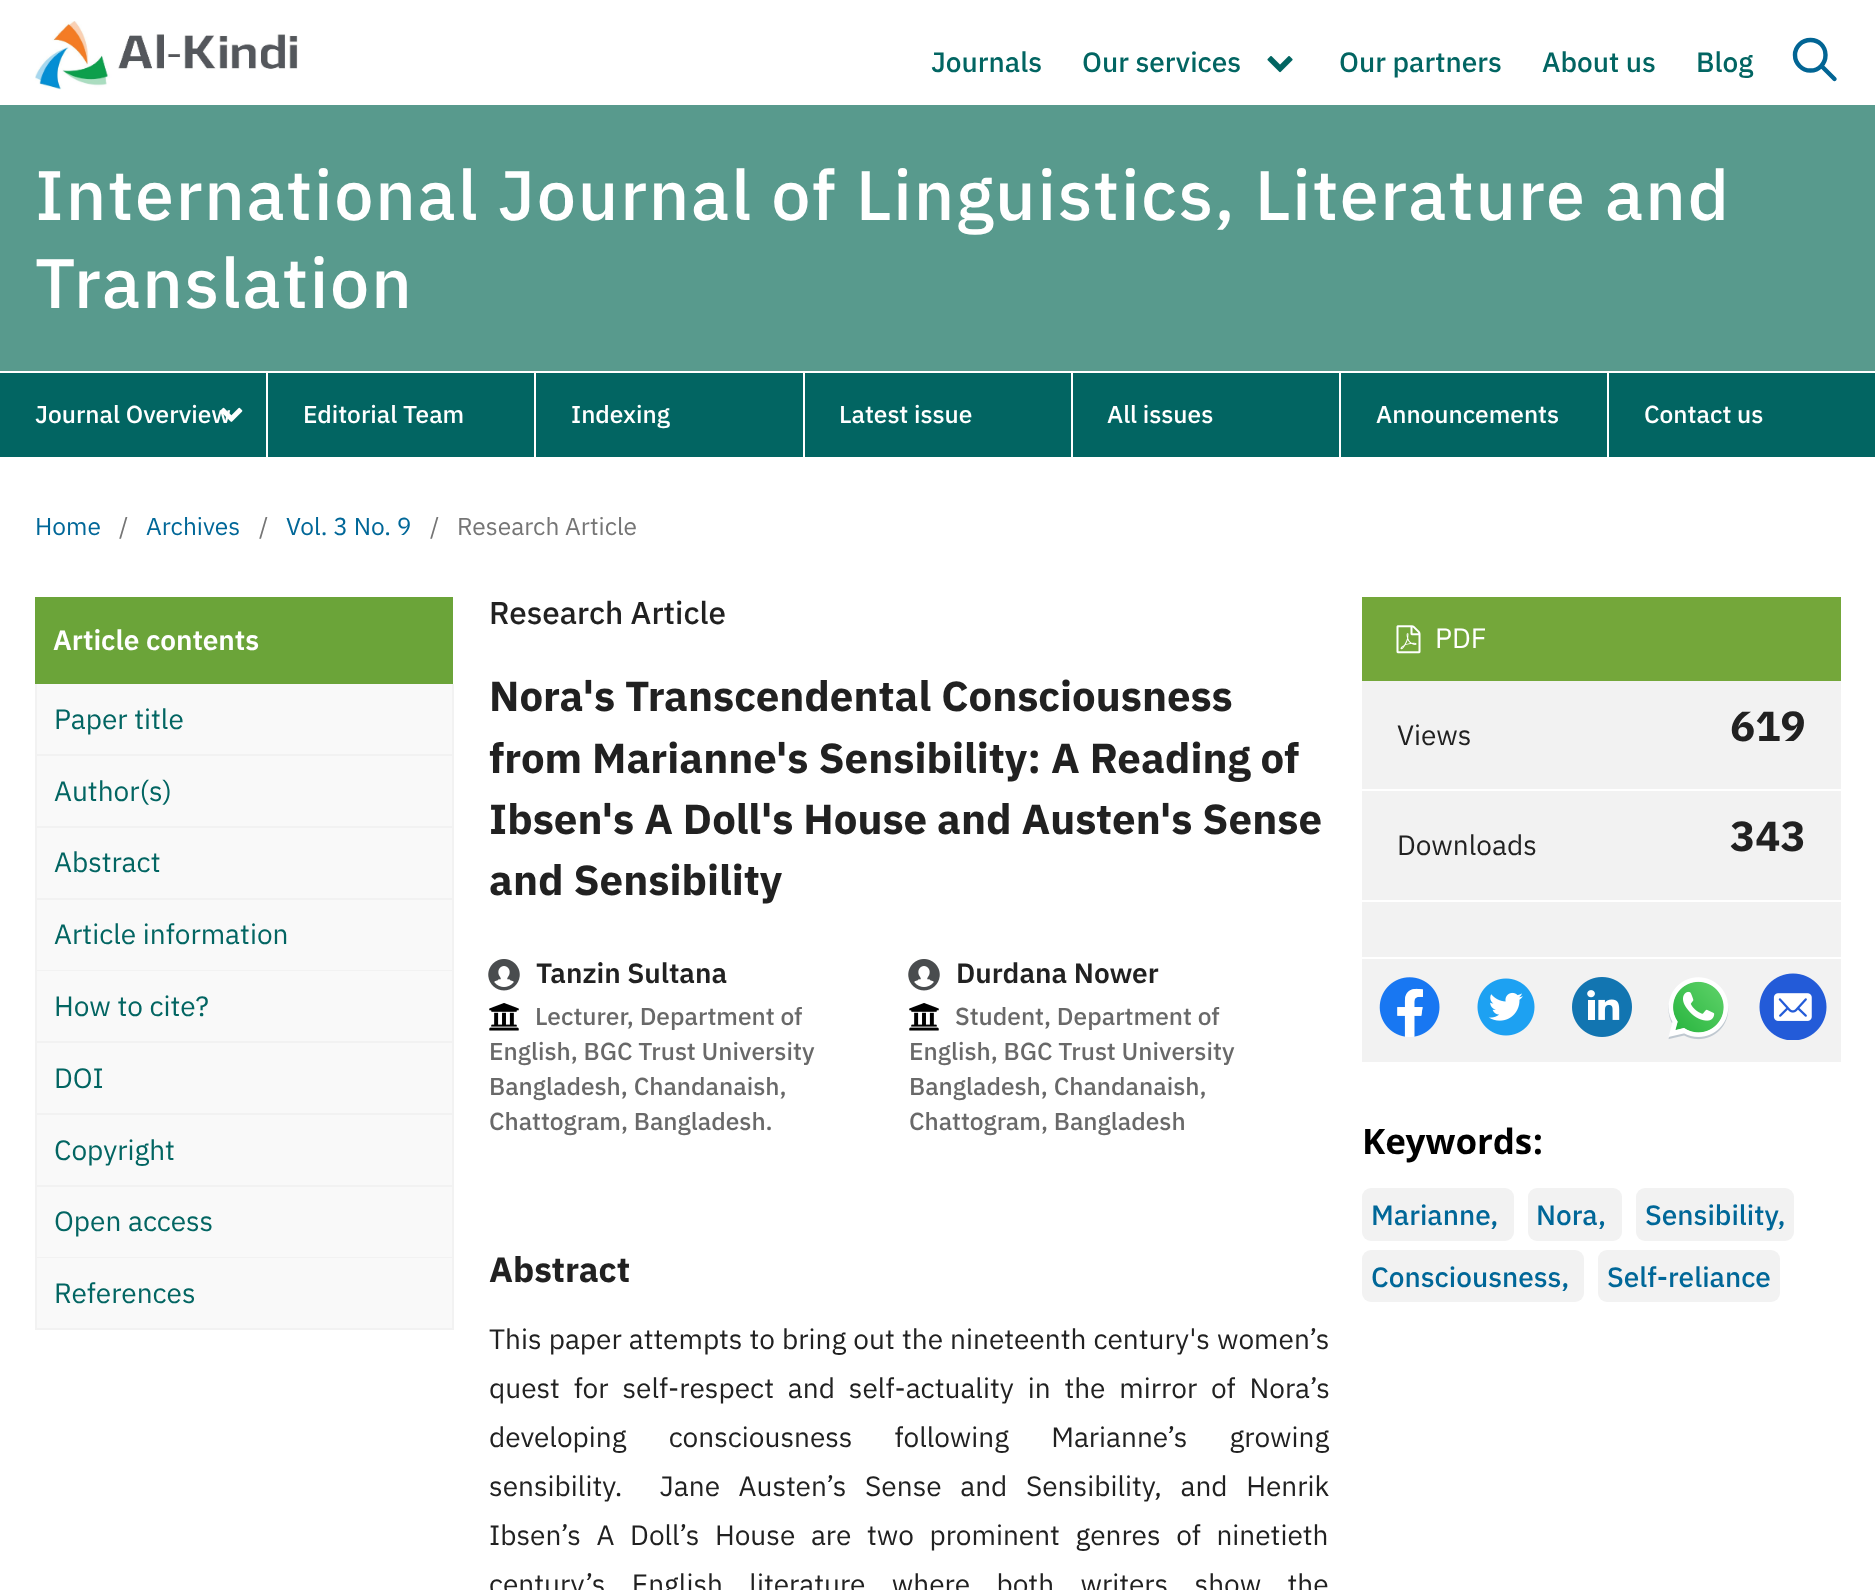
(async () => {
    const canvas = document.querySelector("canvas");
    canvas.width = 1875;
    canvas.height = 1590;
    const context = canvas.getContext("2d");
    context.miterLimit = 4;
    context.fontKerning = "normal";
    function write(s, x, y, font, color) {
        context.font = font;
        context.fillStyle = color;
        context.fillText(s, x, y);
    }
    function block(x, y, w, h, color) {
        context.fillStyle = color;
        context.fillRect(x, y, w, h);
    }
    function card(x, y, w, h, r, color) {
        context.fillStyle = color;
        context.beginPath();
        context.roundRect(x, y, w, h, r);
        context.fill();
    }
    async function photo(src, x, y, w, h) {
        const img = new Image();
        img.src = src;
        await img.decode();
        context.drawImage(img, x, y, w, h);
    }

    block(0, 0, 1875, 1590, "rgb(255, 255, 255)");
    await photo("media/1.png", 35, 21, 263, 69);
    write("Journals", 931, 72, "500 28px IBM Plex Sans", "rgb(2, 101, 98)");
    write("Our services", 1082, 72, "500 28px IBM Plex Sans", "rgb(2, 101, 98)");
    await photo("media/2.png", 1267, 56, 26, 17);
    write("Our partners", 1339, 72, "500 28px IBM Plex Sans", "rgb(2, 101, 98)");
    write("About us", 1542, 72, "500 28px IBM Plex Sans", "rgb(2, 101, 98)");
    write("Blog", 1696, 72, "500 28px IBM Plex Sans", "rgb(2, 101, 98)");
    context.beginPath();
    context.moveTo(1821.5, 66);
    context.lineTo(1834.5, 79);
    context.moveTo(1810.5, 70.5);
    context.bezierCurveTo(1802, 70.5, 1795, 63.5, 1795, 55);
    context.bezierCurveTo(1795, 46.5, 1802, 40, 1810.5, 40);
    context.bezierCurveTo(1819, 40, 1825.5, 46.5, 1825.5, 55);
    context.bezierCurveTo(1825.5, 63.5, 1819, 70.5, 1810.5, 70.5);
    context.closePath();
    context.strokeStyle = "rgb(2, 101, 148)";
    context.lineWidth = 4.4;
    context.lineCap = "round";
    context.lineJoin = "round";
    context.stroke();
    block(0, 373, 1875, 84, "rgb(2, 101, 98)");
    block(0, 105, 1875, 266, "rgb(88, 154, 141)");
    context.letterSpacing = "1.75px";
    write("International Journal of Linguistics, Literature and", 35, 220, "500 70px IBM Plex Sans", "rgb(255, 255, 255)");
    write("Translation", 35, 308, "500 70px IBM Plex Sans", "rgb(255, 255, 255)");
    block(266, 373, 2, 84, "rgb(255, 255, 255)");
    context.letterSpacing = "0px";
    write("Journal Overview", 35, 423, "500 24.5px IBM Plex Sans", "rgb(255, 255, 255)");
    await photo("media/3.png", 220, 407, 23, 15);
    block(534, 373, 2, 84, "rgb(255, 255, 255)");
    write("Editorial Team", 303, 423, "500 24.5px IBM Plex Sans", "rgb(255, 255, 255)");
    block(803, 373, 2, 84, "rgb(255, 255, 255)");
    write("Indexing", 571, 423, "500 24.5px IBM Plex Sans", "rgb(255, 255, 255)");
    block(1071, 373, 2, 84, "rgb(255, 255, 255)");
    write("Latest issue", 839, 423, "500 24.5px IBM Plex Sans", "rgb(255, 255, 255)");
    block(1339, 373, 2, 84, "rgb(255, 255, 255)");
    write("All issues", 1107, 423, "500 24.5px IBM Plex Sans", "rgb(255, 255, 255)");
    block(1607, 373, 2, 84, "rgb(255, 255, 255)");
    write("Announcements", 1376, 423, "500 24.5px IBM Plex Sans", "rgb(255, 255, 255)");
    write("Contact us", 1644, 423, "500 24.5px IBM Plex Sans", "rgb(255, 255, 255)");
    write("Home", 35, 535, "24.5px IBM Plex Sans", "rgb(0, 103, 152)");
    write("/", 119, 535, "24.5px IBM Plex Sans", "rgb(117, 117, 117)");
    write("Archives", 146, 535, "24.5px IBM Plex Sans", "rgb(0, 103, 152)");
    write("/", 259, 535, "24.5px IBM Plex Sans", "rgb(117, 117, 117)");
    write("Vol. 3 No. 9", 286, 535, "24.5px IBM Plex Sans", "rgb(0, 103, 152)");
    write("/", 430, 535, "24.5px IBM Plex Sans", "rgb(117, 117, 117)");
    write("Research Article", 457, 535, "24.5px IBM Plex Sans", "rgb(117, 117, 117)");
    block(35, 597, 418, 87, "rgb(107, 164, 57)");
    write("Article contents", 53, 650, "600 28px IBM Plex Sans", "rgb(255, 255, 255)");
    block(37, 684, 415, 70, "rgb(249, 249, 249)");
    block(452, 684, 2, 646, "rgb(242, 242, 242)");
    block(35, 754, 418, 2, "rgb(242, 242, 242)");
    block(35, 684, 2, 72, "rgb(242, 242, 242)");
    write("Paper title", 54, 729, "28px IBM Plex Sans", "rgb(2, 101, 98)");
    block(37, 756, 415, 70, "rgb(249, 249, 249)");
    block(35, 826, 418, 2, "rgb(242, 242, 242)");
    block(35, 756, 2, 72, "rgb(242, 242, 242)");
    write("Author(s)", 54, 801, "28px IBM Plex Sans", "rgb(2, 101, 98)");
    block(37, 828, 415, 70, "rgb(249, 249, 249)");
    block(35, 898, 418, 2, "rgb(242, 242, 242)");
    block(35, 828, 2, 72, "rgb(242, 242, 242)");
    write("Abstract", 54, 872, "28px IBM Plex Sans", "rgb(2, 101, 98)");
    block(37, 900, 415, 70, "rgb(249, 249, 249)");
    block(35, 970, 418, 1, "rgb(242, 242, 242)");
    block(35, 900, 2, 71, "rgb(242, 242, 242)");
    write("Article information", 54, 944, "28px IBM Plex Sans", "rgb(2, 101, 98)");
    block(37, 971, 415, 70, "rgb(249, 249, 249)");
    block(35, 1041, 418, 2, "rgb(242, 242, 242)");
    block(35, 971, 2, 72, "rgb(242, 242, 242)");
    write("How to cite?", 54, 1016, "28px IBM Plex Sans", "rgb(2, 101, 98)");
    block(37, 1043, 415, 70, "rgb(249, 249, 249)");
    block(35, 1113, 418, 2, "rgb(242, 242, 242)");
    block(35, 1043, 2, 72, "rgb(242, 242, 242)");
    write("DOI", 54, 1088, "28px IBM Plex Sans", "rgb(2, 101, 98)");
    block(37, 1115, 415, 70, "rgb(249, 249, 249)");
    block(35, 1185, 418, 2, "rgb(242, 242, 242)");
    block(35, 1115, 2, 72, "rgb(242, 242, 242)");
    write("Copyright", 54, 1160, "28px IBM Plex Sans", "rgb(2, 101, 98)");
    block(37, 1187, 415, 70, "rgb(249, 249, 249)");
    block(35, 1257, 418, 1, "rgb(242, 242, 242)");
    block(35, 1187, 2, 71, "rgb(242, 242, 242)");
    write("Open access", 54, 1231, "28px IBM Plex Sans", "rgb(2, 101, 98)");
    block(37, 1258, 415, 70, "rgb(249, 249, 249)");
    block(35, 1328, 418, 2, "rgb(242, 242, 242)");
    block(35, 1258, 2, 72, "rgb(242, 242, 242)");
    write("References", 54, 1303, "28px IBM Plex Sans", "rgb(2, 101, 98)");
    write("Research Article", 489, 624, "500 31.5px IBM Plex Sans", "rgb(33, 33, 33)");
    write("Nora's Transcendental Consciousness", 489, 711, "bold 42px IBM Plex Sans", "rgb(33, 33, 33)");
    write("from Marianne's Sensibility: A Reading of", 489, 773, "bold 42px IBM Plex Sans", "rgb(33, 33, 33)");
    write("Ibsen's A Doll's House and Austen's Sense", 489, 834, "bold 42px IBM Plex Sans", "rgb(33, 33, 33)");
    write("and Sensibility", 489, 895, "bold 42px IBM Plex Sans", "rgb(33, 33, 33)");
    await photo("media/4.png", 488, 959, 32, 32);
    write("Tanzin Sultana", 536, 983, "600 28px IBM Plex Sans", "rgb(33, 33, 33)");
    await photo("media/5.png", 489, 1003, 30, 28);
    write("Lecturer, Department of", 535, 1025, "500 24.5px IBM Plex Sans", "rgb(105, 105, 105)");
    write("English, BGC Trust University", 489, 1060, "500 24.5px IBM Plex Sans", "rgb(105, 105, 105)");
    write("Bangladesh, Chandanaish,", 489, 1095, "500 24.5px IBM Plex Sans", "rgb(105, 105, 105)");
    write("Chattogram, Bangladesh.", 489, 1130, "500 24.5px IBM Plex Sans", "rgb(105, 105, 105)");
    await photo("media/4.png", 908, 959, 32, 32);
    write("Durdana Nower", 956, 983, "600 28px IBM Plex Sans", "rgb(33, 33, 33)");
    await photo("media/5.png", 909, 1003, 30, 28);
    write("Student, Department of", 955, 1025, "500 24.5px IBM Plex Sans", "rgb(105, 105, 105)");
    write("English, BGC Trust University", 909, 1060, "500 24.5px IBM Plex Sans", "rgb(105, 105, 105)");
    write("Bangladesh, Chandanaish,", 909, 1095, "500 24.5px IBM Plex Sans", "rgb(105, 105, 105)");
    write("Chattogram, Bangladesh", 909, 1130, "500 24.5px IBM Plex Sans", "rgb(105, 105, 105)");
    write("Abstract", 489, 1282, "bold 35px IBM Plex Sans", "rgb(33, 33, 33)");
    context.wordSpacing = "0.5px";
    write("This paper attempts to bring out the nineteenth century's women’s", 489, 1349, "28px IBM Plex Sans", "rgb(33, 33, 33)");
    context.wordSpacing = "7.25px";
    write("quest for self-respect and self-actuality in the mirror of Nora’s", 489, 1398, "28px IBM Plex Sans", "rgb(33, 33, 33)");
    context.wordSpacing = "35.5px";
    write("developing consciousness following Marianne’s growing", 489, 1447, "28px IBM Plex Sans", "rgb(33, 33, 33)");
    context.wordSpacing = "12px";
    write("sensibility.  Jane Austen’s Sense and Sensibility, and Henrik", 489, 1496, "28px IBM Plex Sans", "rgb(33, 33, 33)");
    context.wordSpacing = "9px";
    write("Ibsen’s A Doll’s House are two prominent genres of ninetieth", 489, 1545, "28px IBM Plex Sans", "rgb(33, 33, 33)");
    context.wordSpacing = "19.75px";
    write("century’s English literature where both writers show the", 489, 1594, "28px IBM Plex Sans", "rgb(33, 33, 33)");
    block(1362, 597, 479, 84, "rgb(116, 167, 58)");
    await photo("media/6.png", 1396, 625, 25, 29);
    context.wordSpacing = "0px";
    write("PDF", 1435, 648, "28px IBM Plex Sans", "rgb(255, 255, 255)");
    block(1362, 681, 479, 108, "rgb(242, 242, 242)");
    write("Views", 1397, 745, "28px IBM Plex Sans", "rgb(33, 33, 33)");
    write("619", 1730, 741, "bold 42px IBM Plex Sans", "rgb(33, 33, 33)");
    block(1362, 791, 479, 109, "rgb(242, 242, 242)");
    write("Downloads", 1397, 855, "28px IBM Plex Sans", "rgb(33, 33, 33)");
    write("343", 1730, 851, "bold 42px IBM Plex Sans", "rgb(33, 33, 33)");
    block(1362, 902, 479, 55, "rgb(242, 242, 242)");
    block(1362, 959, 479, 103, "rgb(242, 242, 242)");
    await photo("media/7.png", 1379, 977, 61, 60);
    await photo("media/8.png", 1477, 978, 58, 58);
    await photo("media/9.png", 1572, 977, 60, 60);
    await photo("media/10.png", 1668, 977, 61, 63);
    await photo("media/11.png", 1759, 973, 68, 67);
    write("Keywords:", 1362, 1154, "bold 35px Noto Sans", "rgb(0, 0, 0)");
    card(1362, 1188, 152, 53, 9, "rgb(242, 242, 242)");
    write("Marianne,", 1371, 1225, "500 28px IBM Plex Sans", "rgb(0, 103, 152)");
    card(1528, 1188, 94, 53, 9, "rgb(242, 242, 242)");
    write("Nora,", 1536, 1225, "500 28px IBM Plex Sans", "rgb(0, 103, 152)");
    card(1636, 1188, 158, 53, 9, "rgb(242, 242, 242)");
    write("Sensibility,", 1645, 1225, "500 28px IBM Plex Sans", "rgb(0, 103, 152)");
    card(1362, 1250, 222, 52, 9, "rgb(242, 242, 242)");
    write("Consciousness,", 1371, 1287, "500 28px IBM Plex Sans", "rgb(0, 103, 152)");
    card(1598, 1250, 182, 52, 9, "rgb(242, 242, 242)");
    write("Self-reliance", 1607, 1287, "500 28px IBM Plex Sans", "rgb(0, 103, 152)");
})();
